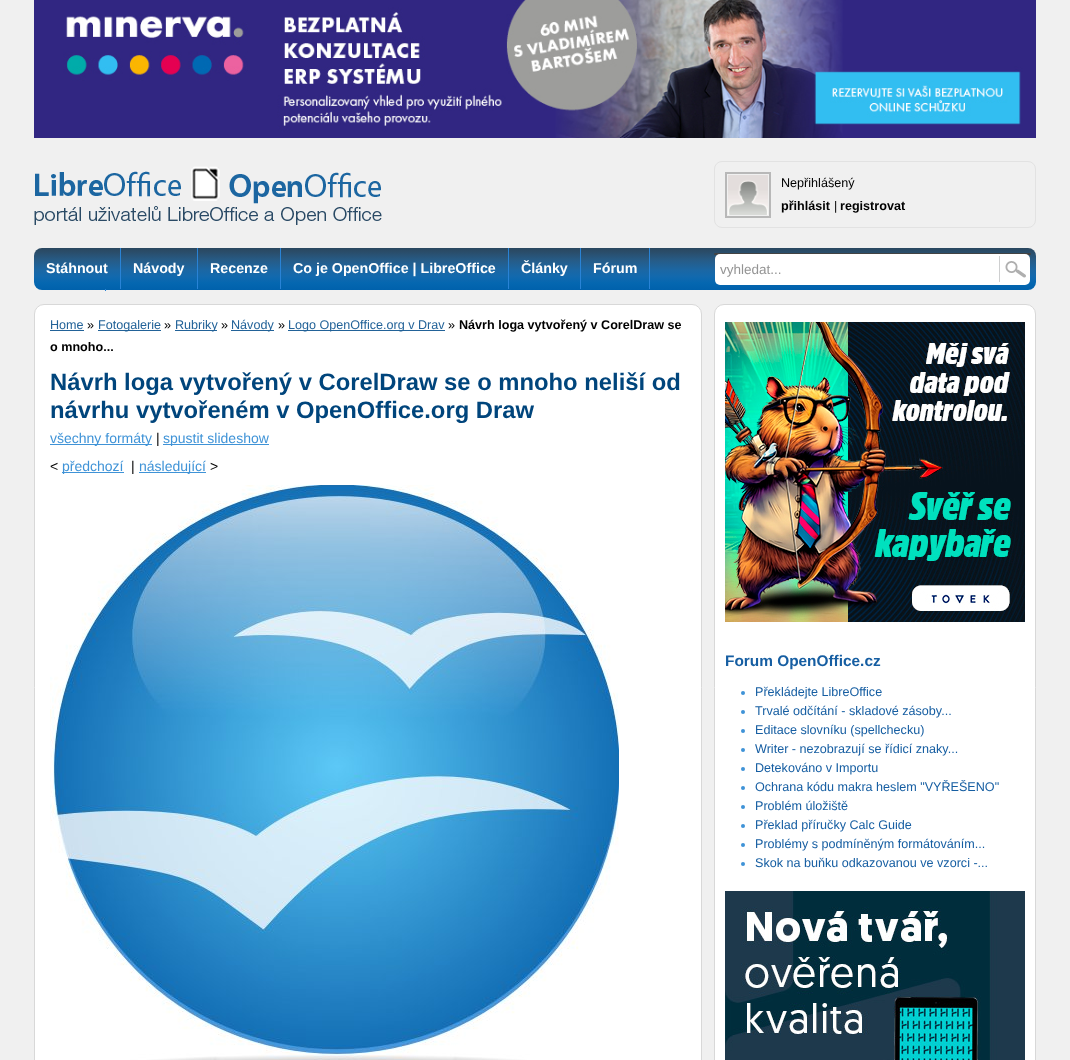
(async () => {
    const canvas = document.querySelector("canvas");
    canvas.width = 1070;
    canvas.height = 1060;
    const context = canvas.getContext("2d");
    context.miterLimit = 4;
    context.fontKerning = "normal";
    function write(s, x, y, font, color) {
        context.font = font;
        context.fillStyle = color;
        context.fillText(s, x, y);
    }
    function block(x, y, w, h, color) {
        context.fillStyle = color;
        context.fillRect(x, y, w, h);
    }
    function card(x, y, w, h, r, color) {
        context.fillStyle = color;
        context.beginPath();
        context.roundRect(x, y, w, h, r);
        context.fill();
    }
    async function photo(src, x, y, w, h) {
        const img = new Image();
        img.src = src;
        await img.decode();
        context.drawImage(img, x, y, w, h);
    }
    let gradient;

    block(0, 0, 1070, 1060, "rgb(240, 240, 240)");
    await photo("media/1.png", 34, 0, 1002, 138);
    await photo("media/2.png", 34, 166, 348, 59);
    context.beginPath();
    context.roundRect(714.5, 161.5, 321, 66, 7.5);
    context.strokeStyle = "rgb(226, 226, 226)";
    context.stroke();
    context.strokeStyle = "rgb(184, 184, 184)";
    context.lineWidth = 2;
    context.strokeRect(726, 173, 44, 44);
    await photo("media/3.png", 728, 175, 40, 40);
    write("Nepřihlášený", 781, 187, "12.6px Liberation Sans", "rgb(0, 0, 0)");
    write("přihlásit", 781, 210, "bold 12.6px Liberation Sans", "rgb(0, 0, 0)");
    write("|", 834, 210, "12.6px Liberation Sans", "rgb(0, 0, 0)");
    write("registrovat", 840, 210, "bold 12.6px Liberation Sans", "rgb(0, 0, 0)");
    gradient = context.createLinearGradient(535, 248, 535, 290);
    gradient.addColorStop(0, "rgb(42, 71, 95)");
    gradient.addColorStop(0.1, "rgb(42, 77, 106)");
    gradient.addColorStop(0.3, "rgb(38, 92, 136)");
    gradient.addColorStop(0.53, "rgb(27, 103, 164)");
    gradient.addColorStop(0.68, "rgb(18, 105, 174)");
    gradient.addColorStop(0.83, "rgb(5, 103, 176)");
    gradient.addColorStop(1, "rgb(0, 97, 172)");
    context.fillStyle = gradient;
    context.beginPath();
    context.roundRect(34, 248, 1002, 42, 8);
    context.fill();
    block(120, 248, 1, 41, "rgb(41, 131, 214)");
    write("Stáhnout", 46, 273, "bold 14.25px Liberation Sans", "rgb(255, 255, 255)");
    block(197, 248, 1, 41, "rgb(41, 131, 214)");
    write("Návody", 133, 273, "bold 14.25px Liberation Sans", "rgb(255, 255, 255)");
    block(280, 248, 1, 41, "rgb(41, 131, 214)");
    write("Recenze", 210, 273, "bold 14.25px Liberation Sans", "rgb(255, 255, 255)");
    block(508, 248, 1, 41, "rgb(41, 131, 214)");
    write("Co je OpenOffice | LibreOffice", 293, 273, "bold 14.25px Liberation Sans", "rgb(255, 255, 255)");
    block(580, 248, 1, 41, "rgb(41, 131, 214)");
    write("Články", 521, 273, "bold 14.25px Liberation Sans", "rgb(255, 255, 255)");
    block(649, 248, 1, 41, "rgb(41, 131, 214)");
    write("Fórum", 593, 273, "bold 14.25px Liberation Sans", "rgb(255, 255, 255)");
    block(105, 289, 1, 2, "rgb(41, 131, 214)");
    card(714, 253, 317, 2, 1, "rgb(67, 67, 67)");
    context.fillStyle = "rgb(255, 255, 255)";
    context.beginPath();
    context.roundRect(715, 254, 275, 31, [5, 0, 0, 5]);
    context.fill();
    write("vyhledat...", 720, 274, "13.5px Liberation Sans", "rgb(148, 148, 148)");
    await photo("media/4.png", 990, 254, 40, 31);
    context.fillStyle = "rgb(255, 255, 255)";
    context.beginPath();
    context.roundRect(34.5, 304.5, 667, 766, 9.5);
    context.fill();
    context.strokeStyle = "rgb(216, 216, 216)";
    context.lineWidth = 1;
    context.stroke();
    write("Home", 50, 329, "12.6px Liberation Sans", "rgb(34, 98, 152)");
    block(50, 330, 34, 1, "rgb(34, 98, 152)");
    write("»", 87, 329, "12.6px Liberation Sans", "rgb(0, 0, 0)");
    block(98, 330, 63, 1, "rgb(34, 98, 152)");
    write("Fotogalerie", 98, 329, "12.6px Liberation Sans", "rgb(34, 98, 152)");
    write("»", 164, 329, "12.6px Liberation Sans", "rgb(0, 0, 0)");
    block(175, 330, 42, 1, "rgb(34, 98, 152)");
    write("Rubriky", 175, 329, "12.6px Liberation Sans", "rgb(34, 98, 152)");
    write("»", 221, 329, "12.6px Liberation Sans", "rgb(0, 0, 0)");
    block(231, 330, 43, 1, "rgb(34, 98, 152)");
    write("Návody", 231, 329, "12.6px Liberation Sans", "rgb(34, 98, 152)");
    write("»", 278, 329, "12.6px Liberation Sans", "rgb(0, 0, 0)");
    block(288, 330, 157, 1, "rgb(34, 98, 152)");
    write("Logo OpenOffice.org v Drav", 288, 329, "12.6px Liberation Sans", "rgb(34, 98, 152)");
    write("»", 448, 329, "12.6px Liberation Sans", "rgb(0, 0, 0)");
    write("Návrh loga vytvořený v CorelDraw se", 459, 329, "bold 12.6px Liberation Sans", "rgb(0, 0, 0)");
    write("o mnoho...", 50, 351, "bold 12.6px Liberation Sans", "rgb(0, 0, 0)");
    write("Návrh loga vytvořený v CorelDraw se o mnoho neliší od", 50, 390, "bold 23.8px Liberation Sans", "rgb(0, 69, 124)");
    write("návrhu vytvořeném v OpenOffice.org Draw", 50, 418, "bold 23.8px Liberation Sans", "rgb(0, 69, 124)");
    block(50, 444, 102, 1, "rgb(63, 147, 215)");
    write("všechny formáty", 50, 443, "14px Liberation Sans", "rgb(63, 147, 215)");
    write("|", 156, 443, "14px Liberation Sans", "rgb(0, 0, 0)");
    block(163, 444, 106, 1, "rgb(63, 147, 215)");
    write("spustit slideshow", 163, 443, "14px Liberation Sans", "rgb(63, 147, 215)");
    write("<", 50, 471, "14px Liberation Sans", "rgb(0, 0, 0)");
    block(62, 472, 62, 1, "rgb(63, 147, 215)");
    write("předchozí", 62, 471, "14px Liberation Sans", "rgb(63, 147, 215)");
    write("|", 131, 471, "14px Liberation Sans", "rgb(0, 0, 0)");
    block(139, 472, 67, 1, "rgb(63, 147, 215)");
    write("následující", 139, 471, "14px Liberation Sans", "rgb(63, 147, 215)");
    write(">", 210, 471, "14px Liberation Sans", "rgb(0, 0, 0)");
    await photo("media/5.png", 50, 485, 569, 575);
    context.fillStyle = "rgb(255, 255, 255)";
    context.beginPath();
    context.roundRect(714.5, 304.5, 321, 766, 9.5);
    context.fill();
    context.stroke();
    await photo("media/6.png", 725, 322, 300, 300);
    write("Forum OpenOffice.cz", 725, 666, "bold 15.4px Liberation Sans", "rgb(22, 94, 162)");
    context.fillStyle = "rgb(63, 147, 215)";
    context.beginPath();
    context.arc(743, 693, 2, 0, Math.PI * 2);
    context.fill();
    write("Překládejte LibreOffice", 755, 696, "12.6px Liberation Sans", "rgb(22, 94, 162)");
    context.fillStyle = "rgb(63, 147, 215)";
    context.beginPath();
    context.arc(743, 712, 2, 0, Math.PI * 2);
    context.fill();
    write("Trvalé odčítání - skladové zásoby...", 755, 715, "12.6px Liberation Sans", "rgb(22, 94, 162)");
    context.fillStyle = "rgb(63, 147, 215)";
    context.beginPath();
    context.arc(743, 731, 2, 0, Math.PI * 2);
    context.fill();
    write("Editace slovníku (spellchecku)", 755, 734, "12.6px Liberation Sans", "rgb(22, 94, 162)");
    context.fillStyle = "rgb(63, 147, 215)";
    context.beginPath();
    context.arc(743, 750, 2, 0, Math.PI * 2);
    context.fill();
    write("Writer - nezobrazují se řídicí znaky...", 755, 753, "12.6px Liberation Sans", "rgb(22, 94, 162)");
    context.fillStyle = "rgb(63, 147, 215)";
    context.beginPath();
    context.arc(743, 769, 2, 0, Math.PI * 2);
    context.fill();
    write("Detekováno v Importu", 755, 772, "12.6px Liberation Sans", "rgb(22, 94, 162)");
    context.fillStyle = "rgb(63, 147, 215)";
    context.beginPath();
    context.arc(743, 788, 2, 0, Math.PI * 2);
    context.fill();
    write("Ochrana kódu makra heslem \"VYŘEŠENO\"", 755, 791, "12.6px Liberation Sans", "rgb(22, 94, 162)");
    context.fillStyle = "rgb(63, 147, 215)";
    context.beginPath();
    context.arc(743, 807, 2, 0, Math.PI * 2);
    context.fill();
    write("Problém úložiště", 755, 810, "12.6px Liberation Sans", "rgb(22, 94, 162)");
    context.fillStyle = "rgb(63, 147, 215)";
    context.beginPath();
    context.arc(743, 826, 2, 0, Math.PI * 2);
    context.fill();
    write("Překlad příručky Calc Guide", 755, 829, "12.6px Liberation Sans", "rgb(22, 94, 162)");
    context.fillStyle = "rgb(63, 147, 215)";
    context.beginPath();
    context.arc(743, 845, 2, 0, Math.PI * 2);
    context.fill();
    write("Problémy s podmíněným formátováním...", 755, 848, "12.6px Liberation Sans", "rgb(22, 94, 162)");
    context.fillStyle = "rgb(63, 147, 215)";
    context.beginPath();
    context.arc(743, 864, 2, 0, Math.PI * 2);
    context.fill();
    write("Skok na buňku odkazovanou ve vzorci -...", 755, 867, "12.6px Liberation Sans", "rgb(22, 94, 162)");
    await photo("media/7.png", 725, 891, 300, 169);
})();
